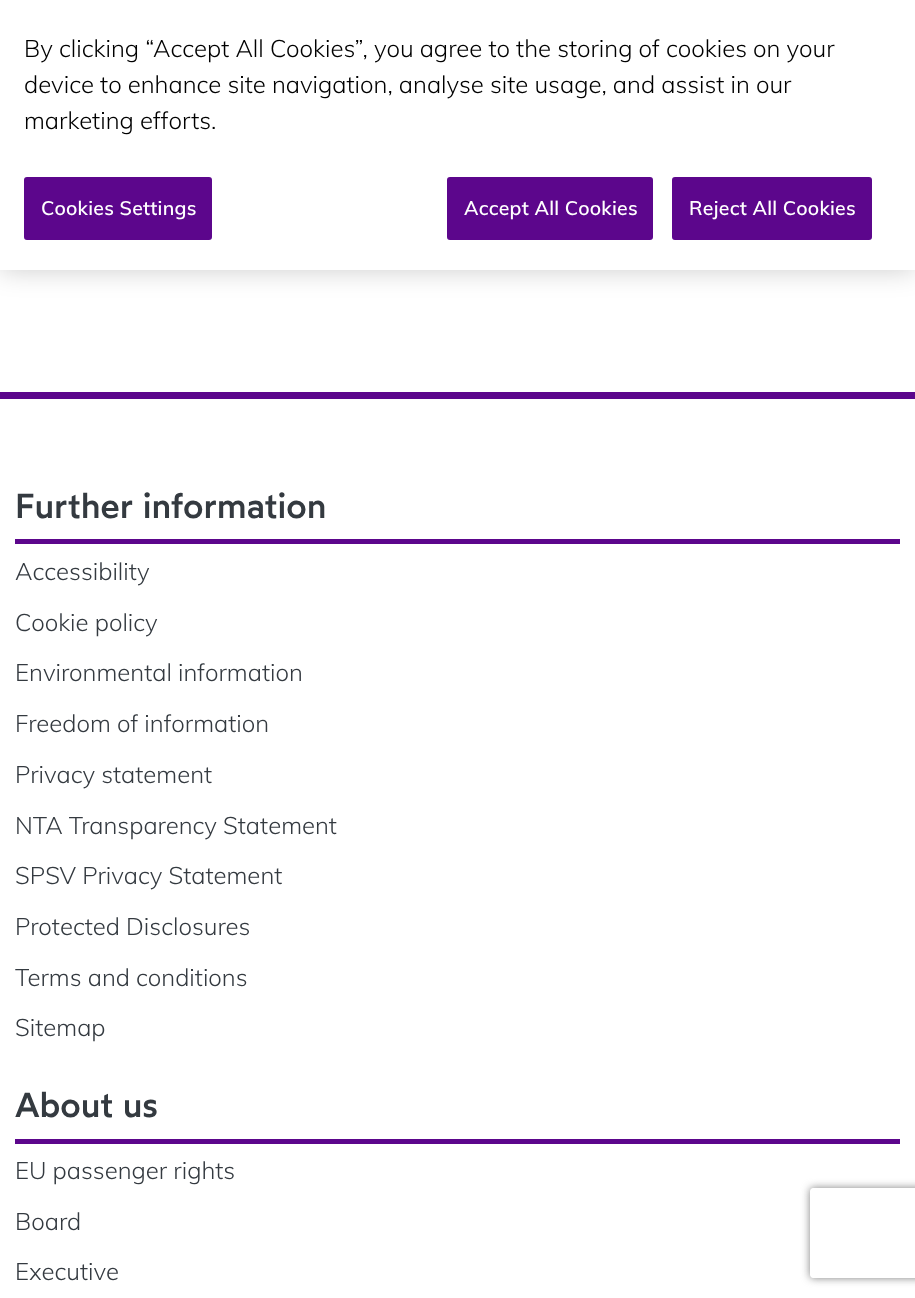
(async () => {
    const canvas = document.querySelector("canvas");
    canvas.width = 915;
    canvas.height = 1298;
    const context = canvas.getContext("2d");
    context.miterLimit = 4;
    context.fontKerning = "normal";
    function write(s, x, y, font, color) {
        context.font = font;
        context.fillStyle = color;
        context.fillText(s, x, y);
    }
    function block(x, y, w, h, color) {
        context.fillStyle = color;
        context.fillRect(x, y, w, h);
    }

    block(0, 0, 915, 1298, "rgb(255, 255, 255)");
    context.fillStyle = "rgba(0, 0, 0, 0.2)";
    context.filter = "blur(13.5px)";
    context.beginPath();
    context.rect(0, 0, 915, 270);
    context.fill();
    context.filter = "none";
    block(0, 0, 915, 270, "rgb(255, 255, 255)");
    write("By clicking “Accept All Cookies”, you agree to the storing of cookies on your", 24, 57, "300 24px Muli", "rgb(0, 0, 0)");
    write("device to enhance site navigation, analyse site usage, and assist in our", 24, 93, "300 24px Muli", "rgb(0, 0, 0)");
    write("marketing efforts.", 24, 129, "300 24px Muli", "rgb(0, 0, 0)");
    context.fillStyle = "rgb(92, 6, 140)";
    context.beginPath();
    context.roundRect(25, 178, 186, 61, 2);
    context.fill();
    context.strokeStyle = "rgb(92, 6, 140)";
    context.lineWidth = 2;
    context.stroke();
    context.letterSpacing = "0.25px";
    write("Cookies Settings", 41, 215, "600 19.5px Muli", "rgb(255, 255, 255)");
    context.fillStyle = "rgb(92, 6, 140)";
    context.beginPath();
    context.roundRect(448, 178, 204, 61, 2);
    context.fill();
    context.stroke();
    write("Accept All Cookies", 464, 215, "600 19.5px Muli", "rgb(255, 255, 255)");
    context.fillStyle = "rgb(92, 6, 140)";
    context.beginPath();
    context.roundRect(673, 178, 198, 61, 2);
    context.fill();
    context.stroke();
    write("Reject All Cookies", 689, 215, "600 19.5px Muli", "rgb(255, 255, 255)");
    block(0, 392, 915, 7, "rgb(92, 6, 140)");
    context.letterSpacing = "0px";
    write("Further information", 15, 518, "500 34.75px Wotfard", "rgb(52, 58, 64)");
    block(15, 539, 885, 5, "rgb(92, 6, 140)");
    write("Accessibility", 15, 580, "300 24px Muli", "rgb(52, 58, 64)");
    write("Cookie policy", 15, 631, "300 24px Muli", "rgb(52, 58, 64)");
    write("Environmental information", 15, 681, "300 24px Muli", "rgb(52, 58, 64)");
    write("Freedom of information", 15, 732, "300 24px Muli", "rgb(52, 58, 64)");
    write("Privacy statement", 15, 783, "300 24px Muli", "rgb(52, 58, 64)");
    write("NTA Transparency Statement", 15, 834, "300 24px Muli", "rgb(52, 58, 64)");
    write("SPSV Privacy Statement", 15, 884, "300 24px Muli", "rgb(52, 58, 64)");
    write("Protected Disclosures", 15, 935, "300 24px Muli", "rgb(52, 58, 64)");
    write("Terms and conditions", 15, 986, "300 24px Muli", "rgb(52, 58, 64)");
    write("Sitemap", 15, 1036, "300 24px Muli", "rgb(52, 58, 64)");
    write("About us", 15, 1117, "500 34.75px Wotfard", "rgb(52, 58, 64)");
    block(15, 1139, 885, 5, "rgb(92, 6, 140)");
    write("EU passenger rights", 15, 1179, "300 24px Muli", "rgb(52, 58, 64)");
    write("Board", 15, 1230, "300 24px Muli", "rgb(52, 58, 64)");
    write("Executive", 15, 1280, "300 24px Muli", "rgb(52, 58, 64)");
    context.save();
    context.beginPath();
    context.moveTo(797, 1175);
    context.lineTo(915, 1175);
    context.lineTo(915, 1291);
    context.lineTo(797, 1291);
    context.closePath();
    context.moveTo(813, 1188);
    context.lineTo(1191, 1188);
    context.bezierCurveTo(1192.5, 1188, 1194, 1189.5, 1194, 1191);
    context.lineTo(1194, 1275);
    context.bezierCurveTo(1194, 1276.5, 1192.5, 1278, 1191, 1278);
    context.lineTo(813, 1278);
    context.bezierCurveTo(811.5, 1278, 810, 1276.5, 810, 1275);
    context.lineTo(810, 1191);
    context.bezierCurveTo(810, 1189.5, 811.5, 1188, 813, 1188);
    context.closePath();
    context.clip("evenodd");
    context.fillStyle = "rgb(128, 128, 128)";
    context.filter = "blur(4px)";
    context.beginPath();
    context.roundRect(810, 1188, 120, 90, 3);
    context.fill();
    context.filter = "none";
    context.restore();
})();
